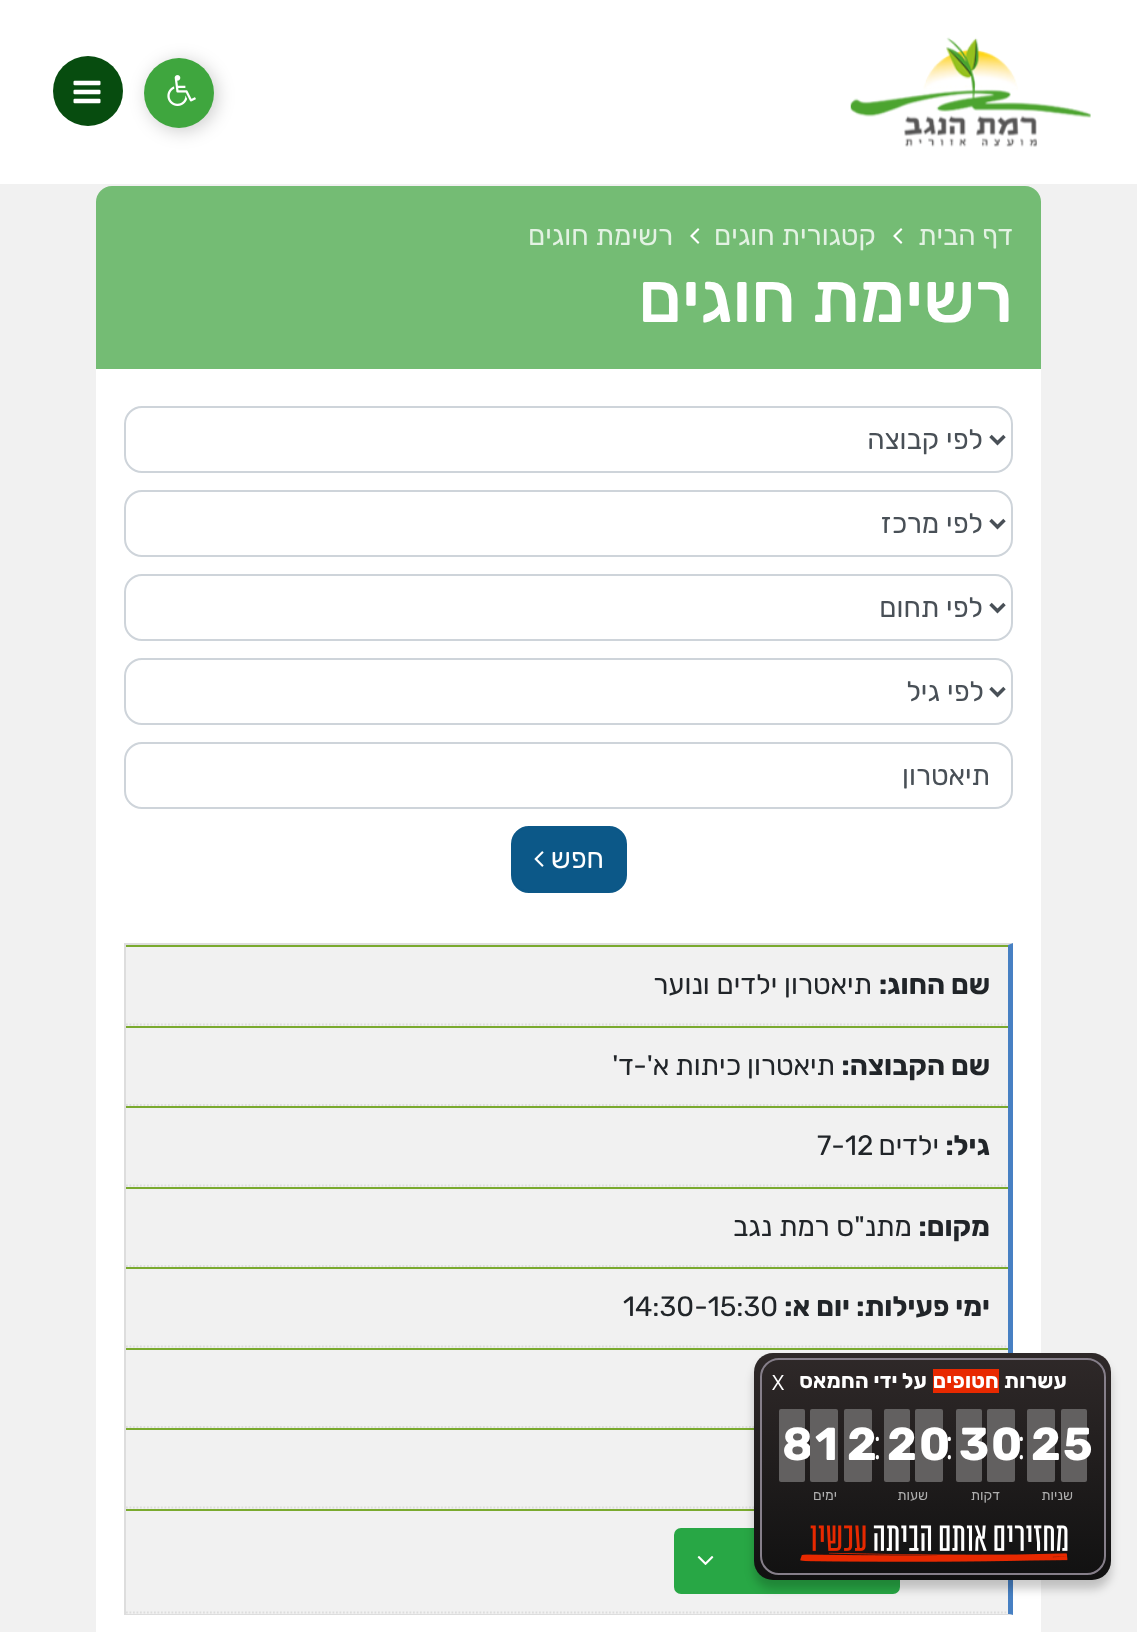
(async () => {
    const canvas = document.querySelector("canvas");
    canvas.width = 1137;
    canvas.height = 1632;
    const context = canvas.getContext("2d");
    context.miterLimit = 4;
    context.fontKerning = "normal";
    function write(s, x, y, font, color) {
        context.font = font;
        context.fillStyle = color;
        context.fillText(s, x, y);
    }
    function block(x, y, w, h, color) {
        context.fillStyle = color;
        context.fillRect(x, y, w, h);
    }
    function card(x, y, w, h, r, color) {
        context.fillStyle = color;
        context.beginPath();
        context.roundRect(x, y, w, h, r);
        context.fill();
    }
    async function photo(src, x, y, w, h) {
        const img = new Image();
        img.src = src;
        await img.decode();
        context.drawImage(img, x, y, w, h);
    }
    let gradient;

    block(0, 0, 1137, 1632, "rgb(241, 241, 241)");
    block(0, 0, 1137, 184, "rgb(255, 255, 255)");
    await photo("media/1.png", 850, 37, 241, 110);
    context.fillStyle = "rgb(7, 76, 15)";
    context.beginPath();
    context.arc(88, 91, 35, 0, Math.PI * 2);
    context.fill();
    await photo("media/2.png", 73, 80, 28, 24);
    context.fillStyle = "rgba(0, 0, 0, 0.2)";
    context.filter = "blur(9px)";
    context.beginPath();
    context.roundRect(147, 61, 70, 70, 35);
    context.fill();
    context.filter = "none";
    context.fillStyle = "rgb(63, 166, 62)";
    context.beginPath();
    context.arc(179, 93, 35, 0, Math.PI * 2);
    context.fill();
    await photo("media/3.png", 167, 75, 29, 31);
    context.fillStyle = "rgb(116, 188, 116)";
    context.beginPath();
    context.roundRect(96, 186, 945, 183, [16, 16, 0, 0]);
    context.fill();
    context.direction = "rtl";
    write("דף הבית", 1013, 245, "28px Rubik", "rgb(227, 242, 227)");
    await photo("media/4.png", 893, 228, 10, 16);
    write("קטגורית חוגים", 876, 245, "28px Rubik", "rgb(227, 242, 227)");
    await photo("media/4.png", 690, 228, 10, 16);
    write("רשימת חוגים", 673, 245, "28px Rubik", "rgb(227, 242, 227)");
    write("רשימת חוגים", 1013, 322, "500 70px Rubik", "rgb(255, 255, 255)");
    block(96, 369, 945, 1263, "rgb(255, 255, 255)");
    context.beginPath();
    context.roundRect(125, 407, 887, 65, 17);
    context.strokeStyle = "rgb(206, 212, 218)";
    context.lineWidth = 2;
    context.stroke();
    context.beginPath();
    context.moveTo(990.5, 436);
    context.lineTo(997.5, 443);
    context.lineTo(1004.5, 436);
    context.strokeStyle = "rgb(73, 80, 87)";
    context.lineWidth = 3.5;
    context.stroke();
    write("לפי קבוצה", 983, 449, "28px Rubik", "rgb(73, 80, 87)");
    context.beginPath();
    context.roundRect(125, 491, 887, 65, 17);
    context.strokeStyle = "rgb(206, 212, 218)";
    context.lineWidth = 2;
    context.stroke();
    context.beginPath();
    context.moveTo(990.5, 520);
    context.lineTo(997.5, 527);
    context.lineTo(1004.5, 520);
    context.strokeStyle = "rgb(73, 80, 87)";
    context.lineWidth = 3.5;
    context.stroke();
    write("לפי מרכז", 983, 533, "28px Rubik", "rgb(73, 80, 87)");
    context.beginPath();
    context.roundRect(125, 575, 887, 65, 17);
    context.strokeStyle = "rgb(206, 212, 218)";
    context.lineWidth = 2;
    context.stroke();
    context.beginPath();
    context.moveTo(990.5, 604);
    context.lineTo(997.5, 611);
    context.lineTo(1004.5, 604);
    context.strokeStyle = "rgb(73, 80, 87)";
    context.lineWidth = 3.5;
    context.stroke();
    write("לפי תחום", 983, 617, "28px Rubik", "rgb(73, 80, 87)");
    context.beginPath();
    context.roundRect(125, 659, 887, 65, 17);
    context.strokeStyle = "rgb(206, 212, 218)";
    context.lineWidth = 2;
    context.stroke();
    context.beginPath();
    context.moveTo(990.5, 688);
    context.lineTo(997.5, 695);
    context.lineTo(1004.5, 688);
    context.strokeStyle = "rgb(73, 80, 87)";
    context.lineWidth = 3.5;
    context.stroke();
    context.wordSpacing = "1px";
    write("לפי גיל", 984, 701, "28px Rubik", "rgb(73, 80, 87)");
    context.beginPath();
    context.roundRect(125, 743, 887, 65, 17);
    context.strokeStyle = "rgb(206, 212, 218)";
    context.lineWidth = 2;
    context.stroke();
    context.wordSpacing = "0px";
    write("תיאטרון", 990, 785, "28px Rubik", "rgb(73, 80, 87)");
    context.fillStyle = "rgb(12, 88, 136)";
    context.beginPath();
    context.roundRect(512, 827, 114, 65, 17);
    context.fill();
    context.strokeStyle = "rgb(12, 88, 136)";
    context.stroke();
    write("חפש", 604, 868, "28px Rubik", "rgb(255, 255, 255)");
    await photo("media/5.png", 534, 851, 10, 16);
    block(126, 947, 882, 667, "rgb(241, 241, 241)");
    context.fillStyle = "rgb(221, 221, 221)";
    context.beginPath();
    context.moveTo(124, 943);
    context.lineTo(1013, 943);
    context.lineTo(1008, 945);
    context.lineTo(126, 945);
    context.closePath();
    context.fill();
    context.fillStyle = "rgb(71, 128, 195)";
    context.beginPath();
    context.moveTo(1013, 943);
    context.lineTo(1013, 1615);
    context.lineTo(1008, 1614);
    context.lineTo(1008, 945);
    context.closePath();
    context.fill();
    context.fillStyle = "rgb(221, 221, 221)";
    context.beginPath();
    context.moveTo(1013, 1615);
    context.lineTo(124, 1615);
    context.lineTo(126, 1614);
    context.lineTo(1008, 1614);
    context.closePath();
    context.fill();
    block(124, 943, 2, 672, "rgb(221, 221, 221)");
    block(126, 945, 882, 2, "rgb(122, 170, 47)");
    context.beginPath();
    context.moveTo(126, 1024.5);
    context.lineTo(1008, 1024.5);
    context.strokeStyle = "rgb(221, 221, 221)";
    context.lineWidth = 1.8;
    context.setLineDash([1.75, 1.75]);
    context.stroke();
    write("שם החוג:", 990, 994, "bold 28px Rubik", "rgb(33, 37, 41)");
    write("תיאטרון ילדים ונוער", 872, 994, "28px Rubik", "rgb(33, 37, 41)");
    block(126, 1026, 882, 2, "rgb(122, 170, 47)");
    context.beginPath();
    context.moveTo(126, 1105);
    context.lineTo(1008, 1105);
    context.stroke();
    write("שם הקבוצה:", 990, 1075, "bold 28px Rubik", "rgb(33, 37, 41)");
    context.wordSpacing = "-1px";
    write("תיאטרון כיתות א'-ד'", 835, 1075, "28px Rubik", "rgb(33, 37, 41)");
    block(126, 1106, 882, 2, "rgb(122, 170, 47)");
    context.beginPath();
    context.moveTo(126, 1185.5);
    context.lineTo(1008, 1185.5);
    context.stroke();
    context.wordSpacing = "0px";
    write("גיל:", 990, 1155, "bold 28px Rubik", "rgb(33, 37, 41)");
    write("ילדים", 939, 1155, "28px Rubik", "rgb(33, 37, 41)");
    context.direction = "ltr";
    write("7-12", 817, 1155, "28px Rubik", "rgb(33, 37, 41)");
    block(126, 1187, 882, 2, "rgb(122, 170, 47)");
    context.beginPath();
    context.moveTo(126, 1266);
    context.lineTo(1008, 1266);
    context.stroke();
    context.direction = "rtl";
    write("מקום:", 990, 1236, "bold 28px Rubik", "rgb(33, 37, 41)");
    write("מתנ\"ס רמת נגב", 912, 1236, "28px Rubik", "rgb(33, 37, 41)");
    block(126, 1267, 882, 2, "rgb(122, 170, 47)");
    context.beginPath();
    context.moveTo(126, 1346.5);
    context.lineTo(1008, 1346.5);
    context.stroke();
    write("ימי פעילות:", 990, 1316, "bold 28px Rubik", "rgb(33, 37, 41)");
    write("יום א:", 850, 1316, "bold 28px Rubik", "rgb(33, 37, 41)");
    context.direction = "ltr";
    write("14:30-15:30", 623, 1316, "28px Rubik", "rgb(33, 37, 41)");
    block(126, 1348, 882, 2, "rgb(122, 170, 47)");
    context.beginPath();
    context.moveTo(126, 1427);
    context.lineTo(1008, 1427);
    context.stroke();
    block(126, 1428, 628, 2, "rgb(122, 170, 47)");
    context.beginPath();
    context.moveTo(126, 1507.5);
    context.lineTo(1008, 1507.5);
    context.stroke();
    block(126, 1509, 628, 2, "rgb(122, 170, 47)");
    context.beginPath();
    context.moveTo(126, 1612.5);
    context.lineTo(1008, 1612.5);
    context.stroke();
    context.fillStyle = "rgb(40, 167, 69)";
    context.beginPath();
    context.roundRect(675, 1529, 224, 64, 6);
    context.fill();
    context.strokeStyle = "rgb(40, 167, 69)";
    context.lineWidth = 2;
    context.setLineDash([]);
    context.stroke();
    await photo("media/6.png", 697, 1556, 17, 9);
    context.fillStyle = "rgba(0, 0, 0, 0.2)";
    context.filter = "blur(5px)";
    context.beginPath();
    context.roundRect(754, 1362, 357, 227, 19);
    context.fill();
    context.filter = "none";
    gradient = context.createLinearGradient(933, 1353, 933, 1580);
    gradient.addColorStop(0, "rgb(47, 41, 41)");
    gradient.addColorStop(1, "rgb(17, 17, 17)");
    context.fillStyle = gradient;
    context.beginPath();
    context.roundRect(754, 1353, 357, 227, 19);
    context.fill();
    context.beginPath();
    context.roundRect(761, 1359, 344, 215, 18);
    context.strokeStyle = "rgb(134, 127, 138)";
    context.stroke();
    context.letterSpacing = "0.25px";
    context.direction = "rtl";
    write("עשרות", 1067, 1388, "bold 21px Rubik", "rgb(255, 255, 255)");
    block(933, 1369, 66, 24, "rgb(232, 41, 0)");
    write("חטופים", 999, 1388, "bold 21px Rubik", "rgb(255, 255, 255)");
    write("על ידי החמאס", 927, 1388, "bold 21px Rubik", "rgb(255, 255, 255)");
    card(1061, 1409, 26, 73, 2, "rgb(98, 96, 96)");
    context.letterSpacing = "0px";
    context.direction = "ltr";
    write("5", 1063, 1460, "bold 46px Rubik", "rgb(255, 255, 255)");
    card(1027, 1409, 28, 73, 2, "rgb(98, 96, 96)");
    write("2", 1031, 1460, "bold 46px Rubik", "rgb(255, 255, 255)");
    context.direction = "rtl";
    write("שניות", 1073, 1500, "14px Rubik", "rgb(175, 175, 175)");
    card(987, 1409, 28, 73, 2, "rgb(98, 96, 96)");
    context.direction = "ltr";
    write("0", 991, 1460, "bold 46px Rubik", "rgb(255, 255, 255)");
    write(":", 1017, 1459, "300 42px Open Sans Condensed", "rgb(255, 255, 255)");
    card(956, 1409, 26, 73, 2, "rgb(98, 96, 96)");
    write("3", 959, 1460, "bold 46px Rubik", "rgb(255, 255, 255)");
    context.direction = "rtl";
    write("דקות", 1000, 1500, "14px Rubik", "rgb(175, 175, 175)");
    card(915, 1409, 28, 73, 2, "rgb(98, 96, 96)");
    context.direction = "ltr";
    write("0", 919, 1460, "bold 46px Rubik", "rgb(255, 255, 255)");
    write(":", 945, 1459, "300 42px Open Sans Condensed", "rgb(255, 255, 255)");
    card(884, 1409, 26, 73, 2, "rgb(98, 96, 96)");
    write("2", 887, 1460, "bold 46px Rubik", "rgb(255, 255, 255)");
    context.direction = "rtl";
    write("שעות", 928, 1500, "14px Rubik", "rgb(175, 175, 175)");
    context.direction = "ltr";
    write(":", 873, 1459, "300 42px Open Sans Condensed", "rgb(255, 255, 255)");
    card(844, 1409, 28, 73, 2, "rgb(98, 96, 96)");
    write("2", 847, 1460, "bold 46px Rubik", "rgb(255, 255, 255)");
    card(779, 1409, 26, 73, 2, "rgb(98, 96, 96)");
    write("8", 782, 1460, "bold 46px Rubik", "rgb(255, 255, 255)");
    card(810, 1409, 28, 73, 2, "rgb(98, 96, 96)");
    write("1", 815, 1460, "bold 46px Rubik", "rgb(255, 255, 255)");
    context.direction = "rtl";
    write("ימים", 837, 1500, "14px Rubik", "rgb(175, 175, 175)");
    await photo("media/7.png", 800, 1525, 268, 37);
    context.direction = "ltr";
    write("X", 772, 1390, "21px Open Sans", "rgb(255, 255, 255)");
})();
